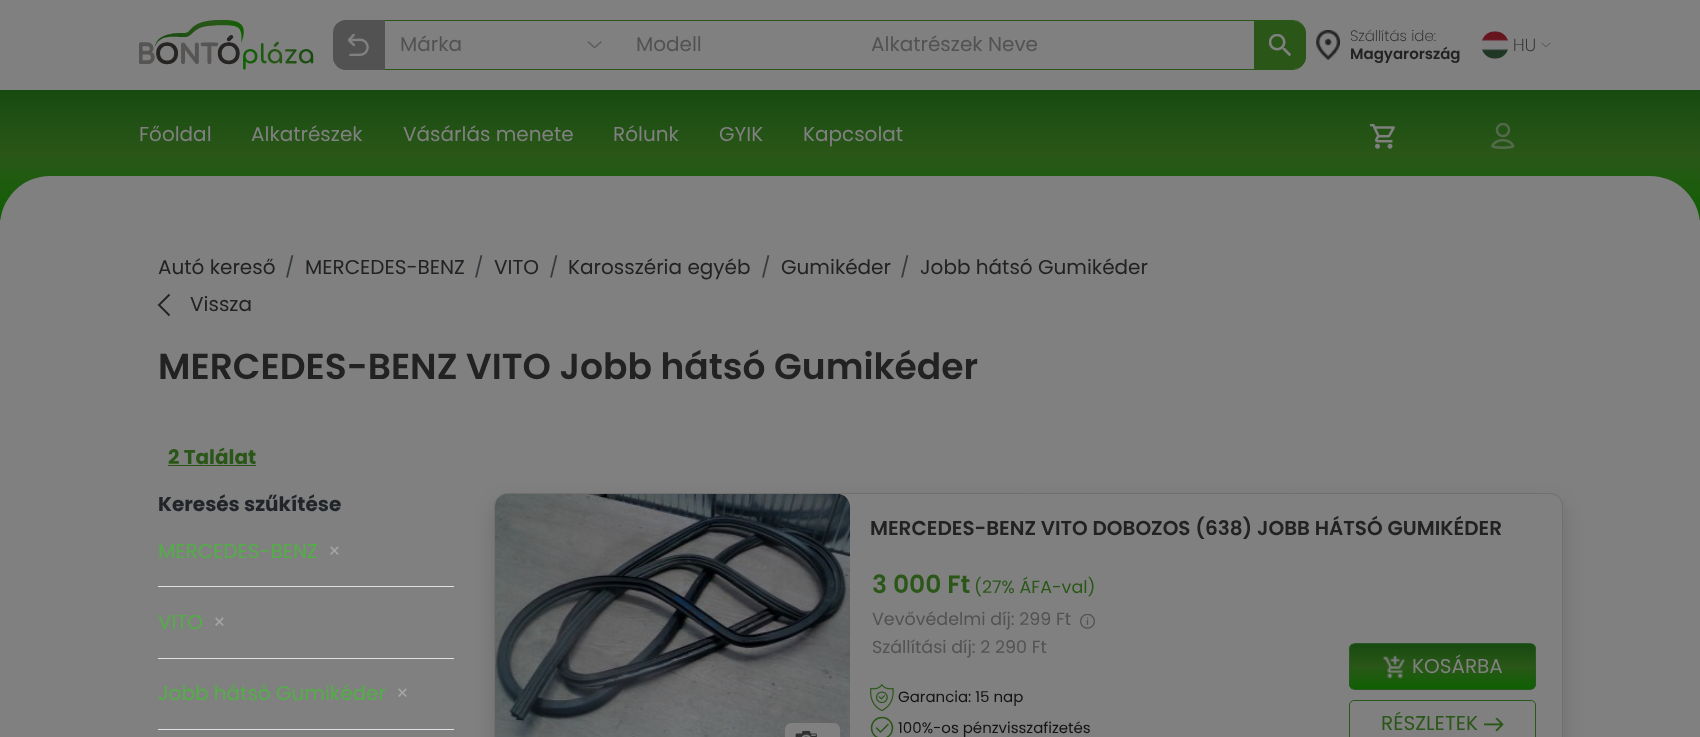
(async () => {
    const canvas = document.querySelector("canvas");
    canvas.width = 1700;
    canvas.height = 737;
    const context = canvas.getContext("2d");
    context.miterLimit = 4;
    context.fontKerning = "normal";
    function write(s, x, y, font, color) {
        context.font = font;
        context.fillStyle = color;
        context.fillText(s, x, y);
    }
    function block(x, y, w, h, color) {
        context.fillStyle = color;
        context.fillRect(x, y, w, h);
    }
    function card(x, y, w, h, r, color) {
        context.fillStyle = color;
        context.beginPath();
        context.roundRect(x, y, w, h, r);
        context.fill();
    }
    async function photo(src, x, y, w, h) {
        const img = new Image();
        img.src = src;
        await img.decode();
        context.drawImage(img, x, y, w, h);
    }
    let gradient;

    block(0, 0, 1700, 737, "rgb(128, 128, 128)");
    await photo("media/1.png", 139, 20, 175, 50);
    context.beginPath();
    context.roundRect(334.5, 20.5, 971, 49, 12.5);
    context.strokeStyle = "rgb(42, 87, 24)";
    context.stroke();
    context.fillStyle = "rgb(83, 82, 82)";
    context.beginPath();
    context.roundRect(333, 20, 52, 50, [13, 0, 0, 13]);
    context.fill();
    await photo("media/2.png", 348, 34, 21, 22);
    write("Márka", 400, 51, "20px Poppins", "rgb(83, 82, 82)");
    await photo("media/3.png", 587, 41, 15, 8);
    write("Modell", 636, 51, "20px Poppins", "rgb(83, 82, 82)");
    write("Alkatrészek Neve", 871, 51, "20px Poppins", "rgb(83, 82, 82)");
    context.fillStyle = "rgb(42, 87, 24)";
    context.beginPath();
    context.roundRect(1254, 21, 52, 48, [0, 13, 13, 0]);
    context.fill();
    await photo("media/4.png", 1269, 34, 22, 22);
    await photo("media/5.png", 1316, 30, 24, 30);
    write("Szállítás ide:", 1350, 41, "200 15px Poppins", "rgb(35, 34, 35)");
    write("Magyarország", 1350, 59, "600 15px Poppins", "rgb(35, 34, 35)");
    await photo("media/6.png", 1482, 31, 27, 28);
    write("HU", 1513, 51, "200 17.5px Poppins", "rgb(35, 34, 35)");
    await photo("media/7.png", 1541, 42, 10, 5);
    gradient = context.createLinearGradient(850, 90, 850, 220);
    gradient.addColorStop(0, "rgb(23, 74, 16)");
    gradient.addColorStop(0.5, "rgb(42, 87, 24)");
    gradient.addColorStop(1, "rgb(15, 96, 2)");
    context.fillStyle = gradient;
    context.fillRect(0, 90, 1700, 130);
    write("Főoldal", 139, 141, "20px Poppins", "rgb(128, 128, 128)");
    write("Alkatrészek", 251, 141, "20px Poppins", "rgb(128, 128, 128)");
    write("Vásárlás menete", 403, 141, "20px Poppins", "rgb(128, 128, 128)");
    write("Rólunk", 613, 141, "20px Poppins", "rgb(128, 128, 128)");
    write("GYIK", 719, 141, "20px Poppins", "rgb(128, 128, 128)");
    write("Kapcsolat", 803, 141, "20px Poppins", "rgb(128, 128, 128)");
    await photo("media/8.png", 1370, 124, 25, 25);
    await photo("media/9.png", 1491, 123, 24, 26);
    context.beginPath();
    context.roundRect(0, 176, 1700, 57, [50, 50, 0, 0]);
    context.fill();
    write("Autó kereső", 158, 274, "20px Poppins", "rgb(35, 34, 35)");
    write("/", 285, 274, "20px Poppins", "rgb(54, 59, 63)");
    write("MERCEDES-BENZ", 305, 274, "20px Poppins", "rgb(35, 34, 35)");
    write("/", 474, 274, "20px Poppins", "rgb(54, 59, 63)");
    write("VITO", 494, 274, "20px Poppins", "rgb(35, 34, 35)");
    write("/", 549, 274, "20px Poppins", "rgb(54, 59, 63)");
    write("Karosszéria egyéb", 568, 274, "20px Poppins", "rgb(35, 34, 35)");
    write("/", 761, 274, "20px Poppins", "rgb(54, 59, 63)");
    write("Gumikéder", 781, 274, "20px Poppins", "rgb(35, 34, 35)");
    write("/", 900, 274, "20px Poppins", "rgb(54, 59, 63)");
    write("Jobb hátsó Gumikéder", 920, 274, "20px Poppins", "rgb(35, 34, 35)");
    context.beginPath();
    context.moveTo(169.5, 315.5);
    context.lineTo(159, 305);
    context.lineTo(169.5, 294.5);
    context.strokeStyle = "rgb(35, 34, 35)";
    context.lineWidth = 1.9;
    context.stroke();
    write("Vissza", 190, 311, "20px Poppins", "rgb(35, 34, 35)");
    write("MERCEDES-BENZ VITO Jobb hátsó Gumikéder", 158, 379, "600 36.1px Poppins", "rgb(35, 34, 35)");
    write("2 Találat", 168, 464, "bold 20px Poppins", "rgb(42, 87, 24)");
    block(168, 465, 88, 1, "rgb(42, 87, 24)");
    write("Keresés szűkítése", 158, 511, "bold 20px Poppins", "rgb(33, 37, 41)");
    block(158, 586, 296, 1, "rgb(222, 226, 230)");
    write("MERCEDES-BENZ", 158, 558, "20px Poppins", "rgb(83, 174, 71)");
    write("×", 328, 558, "20px Poppins", "rgb(165, 163, 164)");
    block(158, 658, 296, 1, "rgb(222, 226, 230)");
    write("VITO", 158, 629, "20px Poppins", "rgb(83, 174, 71)");
    write("×", 213, 629, "20px Poppins", "rgb(165, 163, 164)");
    block(158, 729, 296, 1, "rgb(222, 226, 230)");
    write("Jobb hátsó Gumikéder", 158, 700, "20px Poppins", "rgb(83, 174, 71)");
    write("×", 396, 700, "20px Poppins", "rgb(165, 163, 164)");
    context.fillStyle = "rgba(0, 0, 0, 0.15)";
    context.filter = "blur(10px)";
    context.beginPath();
    context.roundRect(494, 503, 1069, 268, 13);
    context.fill();
    context.filter = "none";
    context.fillStyle = "rgb(128, 128, 128)";
    context.beginPath();
    context.roundRect(494.5, 493.5, 1068, 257, 12.5);
    context.fill();
    context.strokeStyle = "rgb(112, 112, 112)";
    context.lineWidth = 1;
    context.stroke();
    await photo("media/10.png", 495, 494, 355, 243);
    card(785, 723, 55, 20, 6, "rgb(128, 128, 128)");
    await photo("media/11.png", 795, 730, 22, 7);
    write("MERCEDES-BENZ VITO DOBOZOS (638) JOBB HÁTSÓ GUMIKÉDER", 870, 535, "600 20px Poppins", "rgb(35, 34, 35)");
    write("3 000 Ft", 872, 593, "600 25px Poppins", "rgb(42, 87, 24)");
    write("(27% ÁFA-val)", 974, 593, "17.5px Poppins", "rgb(42, 87, 24)");
    write("Vevővédelmi díj: 299 Ft", 872, 625, "17.5px Poppins", "rgb(83, 82, 82)");
    await photo("media/12.png", 1080, 614, 15, 15);
    write("Szállítási díj: 2 290 Ft", 872, 653, "17.5px Poppins", "rgb(83, 82, 82)");
    await photo("media/13.png", 870, 684, 24, 27);
    write("Garancia: 15 nap", 898, 702, "15px Poppins", "rgb(17, 19, 21)");
    context.beginPath();
    context.arc(882, 728, 10.5, 0, Math.PI * 2);
    context.strokeStyle = "rgb(42, 87, 24)";
    context.lineWidth = 1.5;
    context.stroke();
    write("100%-os pénzvisszafizetés", 898, 733, "15px Poppins", "rgb(17, 19, 21)");
    context.beginPath();
    context.moveTo(876.5, 728);
    context.lineTo(880.5, 732);
    context.lineTo(888, 724.5);
    context.lineCap = "round";
    context.lineJoin = "round";
    context.stroke();
    context.save();
    context.beginPath();
    context.roundRect(1349, 643, 187, 47, 6);
    context.clip();
    gradient = context.createLinearGradient(1443, 644, 1443, 689);
    gradient.addColorStop(0, "rgb(23, 74, 16)");
    gradient.addColorStop(0.5, "rgb(42, 87, 24)");
    gradient.addColorStop(1, "rgb(15, 96, 2)");
    context.fillStyle = gradient;
    context.fillRect(1349, 644, 187, 45);
    context.restore();
    context.beginPath();
    context.roundRect(1349.5, 643.5, 186, 46, 5.5);
    context.strokeStyle = "rgb(42, 87, 36)";
    context.lineWidth = 1;
    context.lineJoin = "miter";
    context.stroke();
    await photo("media/14.png", 1382, 655, 24, 24);
    write("KOSÁRBA", 1412, 673, "20px Poppins", "rgb(128, 128, 128)");
    context.beginPath();
    context.roundRect(1349.5, 700.5, 186, 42, 4.5);
    context.strokeStyle = "rgb(41, 87, 24)";
    context.stroke();
    write("RÉSZLETEK", 1381, 730, "20px Poppins", "rgb(42, 87, 24)");
    await photo("media/15.png", 1484, 718, 20, 14);
})();
